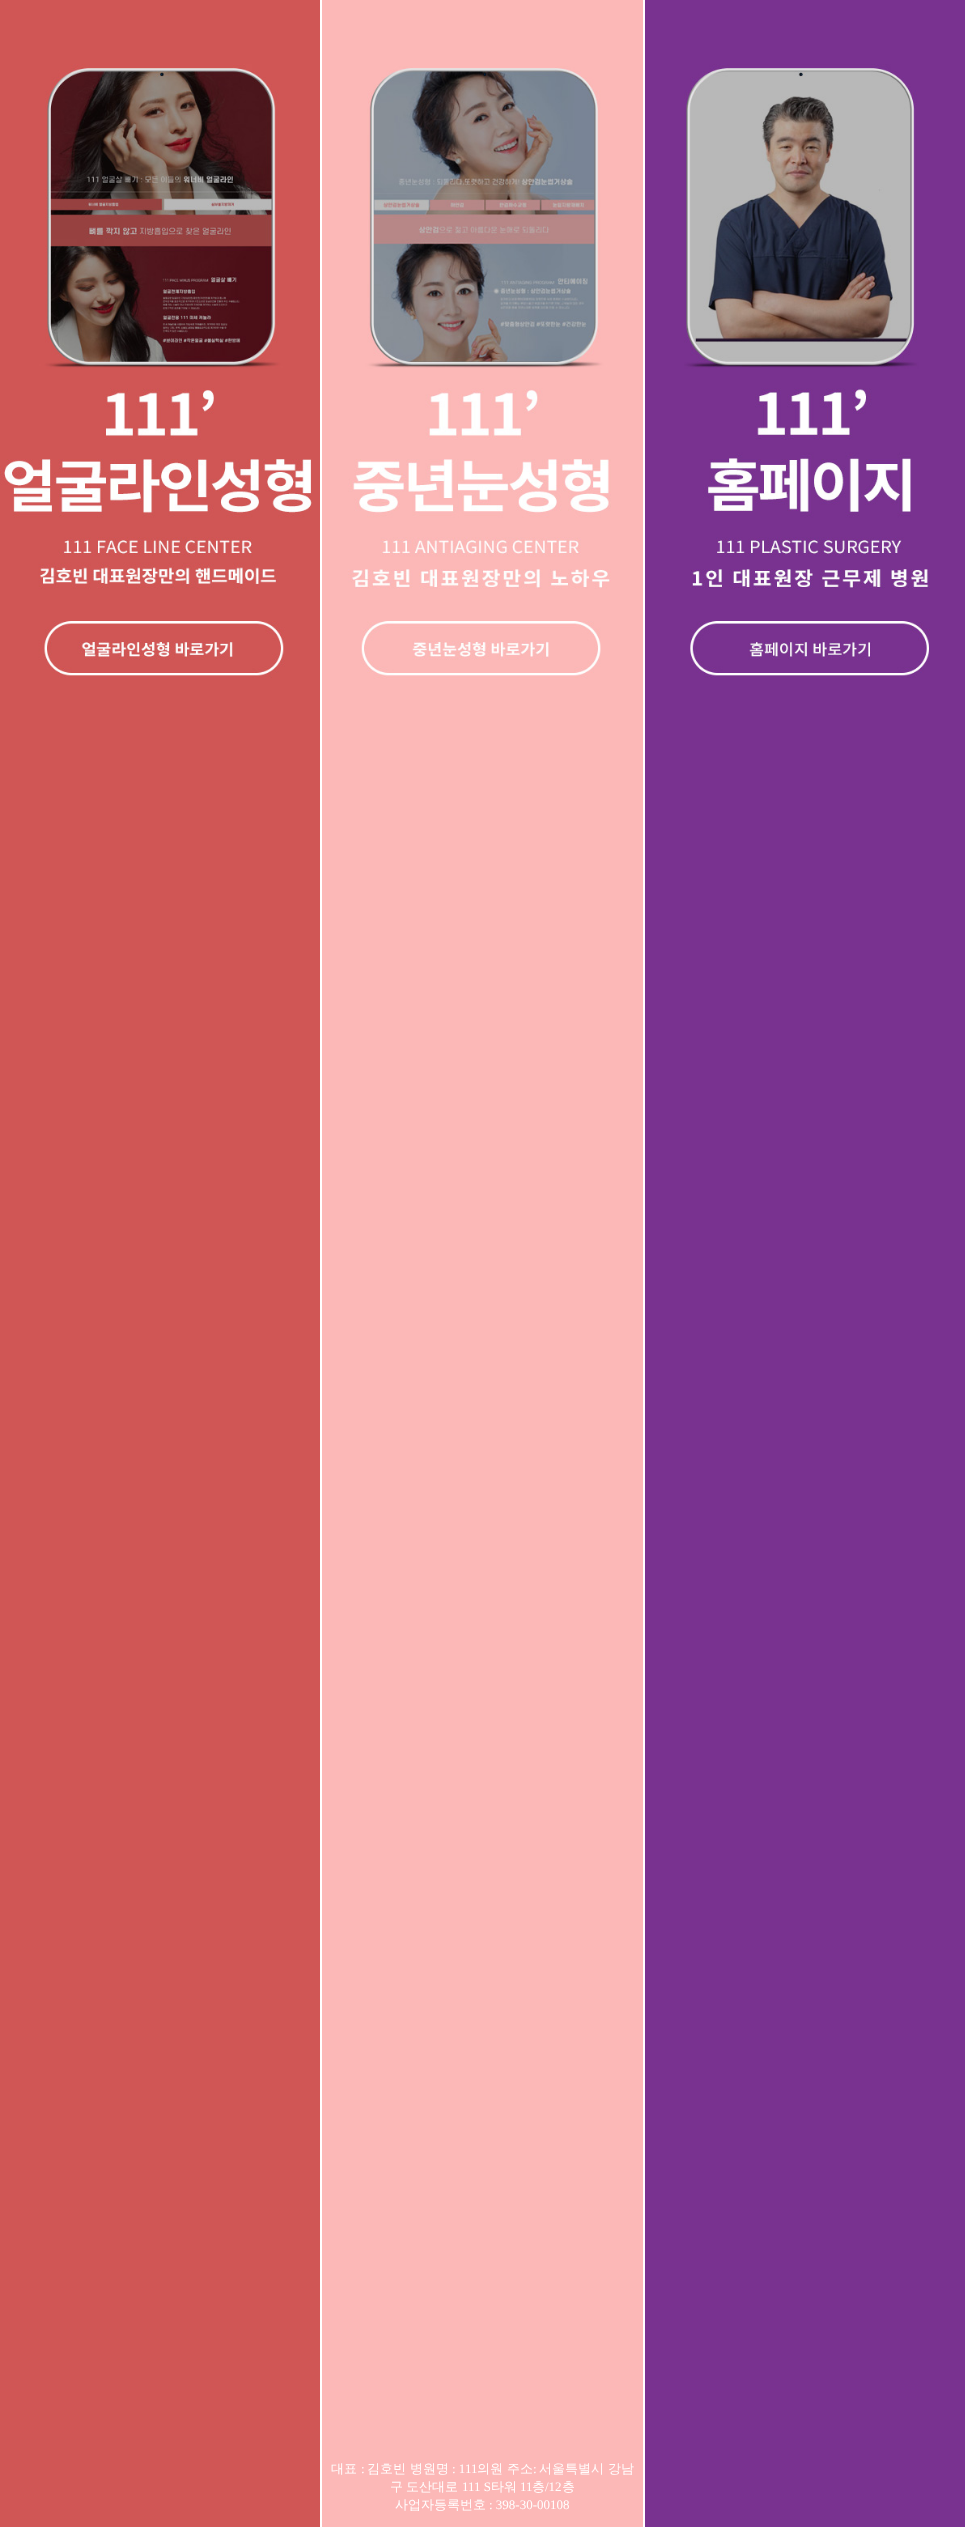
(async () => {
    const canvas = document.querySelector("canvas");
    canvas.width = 965;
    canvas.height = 2527;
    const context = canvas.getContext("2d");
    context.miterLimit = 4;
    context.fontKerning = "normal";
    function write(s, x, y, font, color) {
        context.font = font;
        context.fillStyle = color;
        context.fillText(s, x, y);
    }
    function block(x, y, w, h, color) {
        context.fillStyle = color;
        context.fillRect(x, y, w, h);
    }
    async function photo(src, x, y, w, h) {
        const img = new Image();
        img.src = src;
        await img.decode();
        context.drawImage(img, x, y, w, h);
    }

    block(0, 0, 965, 2527, "rgb(208, 86, 85)");
    block(320, 0, 2, 2527, "rgb(255, 255, 255)");
    await photo("media/1.png", 0, 64, 312, 614);
    block(322, 0, 321, 2527, "rgb(252, 184, 183)");
    block(643, 0, 2, 2527, "rgb(255, 255, 255)");
    await photo("media/2.png", 348, 66, 263, 613);
    block(645, 0, 320, 2527, "rgb(121, 50, 144)");
    await photo("media/3.png", 684, 64, 246, 614);
    write("대표", 331, 2473, "500 13px WenQuanYi Zen Hei", "rgb(255, 255, 255)");
    write(":", 361, 2473, "13px Liberation Serif", "rgb(255, 255, 255)");
    write("김호빈", 367, 2473, "500 13px WenQuanYi Zen Hei", "rgb(255, 255, 255)");
    write("병원명", 410, 2473, "500 13px WenQuanYi Zen Hei", "rgb(255, 255, 255)");
    write(": 111", 452, 2473, "13px Liberation Serif", "rgb(255, 255, 255)");
    write("의원", 477, 2473, "500 13px WenQuanYi Zen Hei", "rgb(255, 255, 255)");
    write("주소", 507, 2473, "500 13px WenQuanYi Zen Hei", "rgb(255, 255, 255)");
    write(":", 533, 2473, "13px Liberation Serif", "rgb(255, 255, 255)");
    write("서울특별시", 539, 2473, "500 13px WenQuanYi Zen Hei", "rgb(255, 255, 255)");
    write("강남", 608, 2473, "500 13px WenQuanYi Zen Hei", "rgb(255, 255, 255)");
    write("구", 390, 2491, "500 13px WenQuanYi Zen Hei", "rgb(255, 255, 255)");
    write("도산대로", 406, 2491, "500 13px WenQuanYi Zen Hei", "rgb(255, 255, 255)");
    write("111 S", 462, 2491, "13px Liberation Serif", "rgb(255, 255, 255)");
    write("타워", 491, 2491, "500 13px WenQuanYi Zen Hei", "rgb(255, 255, 255)");
    write("11", 520, 2491, "13px Liberation Serif", "rgb(255, 255, 255)");
    write("층", 532, 2491, "500 13px WenQuanYi Zen Hei", "rgb(255, 255, 255)");
    write("/12", 545, 2491, "13px Liberation Serif", "rgb(255, 255, 255)");
    write("층", 562, 2491, "500 13px WenQuanYi Zen Hei", "rgb(255, 255, 255)");
    write("사업자등록번호", 395, 2509, "500 13px WenQuanYi Zen Hei", "rgb(255, 255, 255)");
    write(": 398-30-00108", 489, 2509, "13px Liberation Serif", "rgb(255, 255, 255)");
})();
